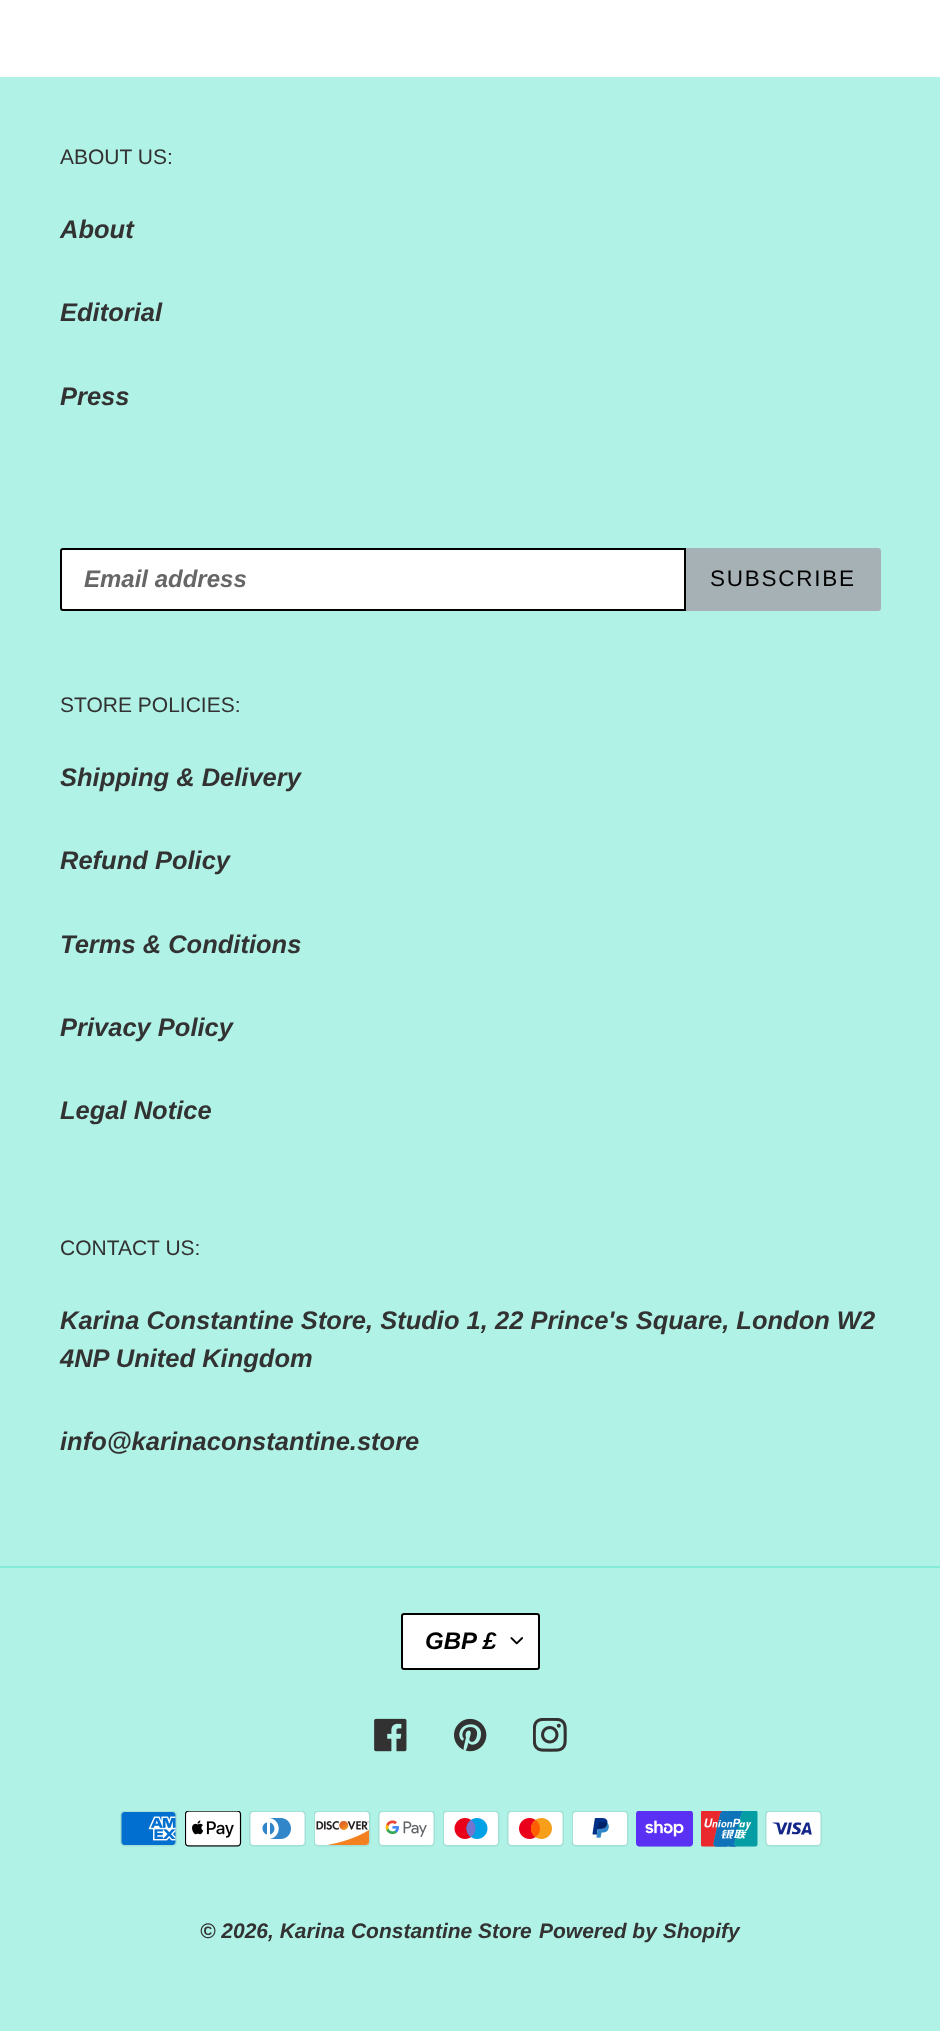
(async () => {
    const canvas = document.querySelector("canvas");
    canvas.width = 940;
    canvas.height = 2031;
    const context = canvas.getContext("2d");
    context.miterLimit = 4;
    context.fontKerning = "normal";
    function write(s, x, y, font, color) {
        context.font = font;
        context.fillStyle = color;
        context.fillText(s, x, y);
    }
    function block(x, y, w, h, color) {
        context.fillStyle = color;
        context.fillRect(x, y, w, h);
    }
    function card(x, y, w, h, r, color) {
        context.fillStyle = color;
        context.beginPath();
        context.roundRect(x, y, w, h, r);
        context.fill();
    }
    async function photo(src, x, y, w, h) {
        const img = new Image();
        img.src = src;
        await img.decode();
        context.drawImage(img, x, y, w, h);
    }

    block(0, 0, 940, 2031, "rgb(255, 255, 255)");
    block(0, 77, 940, 1954, "rgb(176, 242, 230)");
    write("ABOUT US:", 60, 164, "21px Liberation Sans", "rgb(51, 50, 50)");
    write("About", 60, 238, "italic bold 25.5px Liberation Sans", "rgb(51, 50, 50)");
    write("Editorial", 60, 321, "italic bold 25.5px Liberation Sans", "rgb(51, 50, 50)");
    write("Press", 60, 405, "italic bold 25.5px Liberation Sans", "rgb(51, 50, 50)");
    context.fillStyle = "rgb(255, 255, 255)";
    context.beginPath();
    context.roundRect(61, 549, 624, 61, [2, 0, 0, 2]);
    context.fill();
    context.strokeStyle = "rgb(0, 0, 0)";
    context.lineWidth = 2;
    context.stroke();
    write("Email address", 84, 587, "italic bold 24px Liberation Sans", "rgb(102, 102, 102)");
    context.fillStyle = "rgb(166, 177, 182)";
    context.beginPath();
    context.roundRect(686, 548, 195, 63, [0, 3, 3, 0]);
    context.fill();
    context.letterSpacing = "1.75px";
    write("SUBSCRIBE", 710, 586, "22.5px Liberation Sans", "rgb(0, 0, 0)");
    context.letterSpacing = "0px";
    write("STORE POLICIES:", 60, 712, "21px Liberation Sans", "rgb(51, 50, 50)");
    write("Shipping & Delivery", 60, 786, "italic bold 25.5px Liberation Sans", "rgb(51, 50, 50)");
    write("Refund Policy", 60, 869, "italic bold 25.5px Liberation Sans", "rgb(51, 50, 50)");
    write("Terms & Conditions", 60, 953, "italic bold 25.5px Liberation Sans", "rgb(51, 50, 50)");
    write("Privacy Policy", 60, 1036, "italic bold 25.5px Liberation Sans", "rgb(51, 50, 50)");
    write("Legal Notice", 60, 1119, "italic bold 25.5px Liberation Sans", "rgb(51, 50, 50)");
    write("CONTACT US:", 60, 1255, "21px Liberation Sans", "rgb(51, 50, 50)");
    write("Karina Constantine Store, Studio 1, 22 Prince's Square, London W2", 60, 1329, "italic bold 25.5px Liberation Sans", "rgb(51, 50, 50)");
    write("4NP United Kingdom", 60, 1367, "italic bold 25.5px Liberation Sans", "rgb(51, 50, 50)");
    write("info@karinaconstantine.store", 60, 1450, "italic bold 25.5px Liberation Sans", "rgb(51, 50, 50)");
    block(0, 1566, 940, 2, "rgb(132, 235, 216)");
    card(401, 1613, 139, 57, 3, "rgb(255, 255, 255)");
    await photo("media/1.png", 510, 1637, 13, 8);
    context.beginPath();
    context.roundRect(402, 1614, 137, 55, 2);
    context.stroke();
    write("GBP £", 425, 1649, "italic bold 24px Liberation Sans", "rgb(0, 0, 0)");
    await photo("media/2.png", 374, 1718, 33, 34);
    await photo("media/3.png", 454, 1718, 33, 34);
    await photo("media/4.png", 533, 1718, 34, 34);
    await photo("media/5.png", 120, 1811, 57, 36);
    await photo("media/6.png", 185, 1811, 57, 36);
    await photo("media/7.png", 249, 1811, 57, 36);
    await photo("media/8.png", 314, 1811, 57, 36);
    await photo("media/9.png", 378, 1811, 57, 36);
    await photo("media/10.png", 443, 1811, 57, 36);
    await photo("media/11.png", 507, 1811, 57, 36);
    await photo("media/12.png", 572, 1811, 57, 36);
    await photo("media/13.png", 636, 1811, 57, 36);
    await photo("media/14.png", 701, 1811, 57, 36);
    await photo("media/15.png", 765, 1811, 57, 36);
    write("© 2026, Karina Constantine Store", 200, 1938, "italic bold 21px Liberation Sans", "rgb(51, 50, 50)");
    write("Powered by Shopify", 539, 1938, "italic bold 21px Liberation Sans", "rgb(51, 50, 50)");
})();
